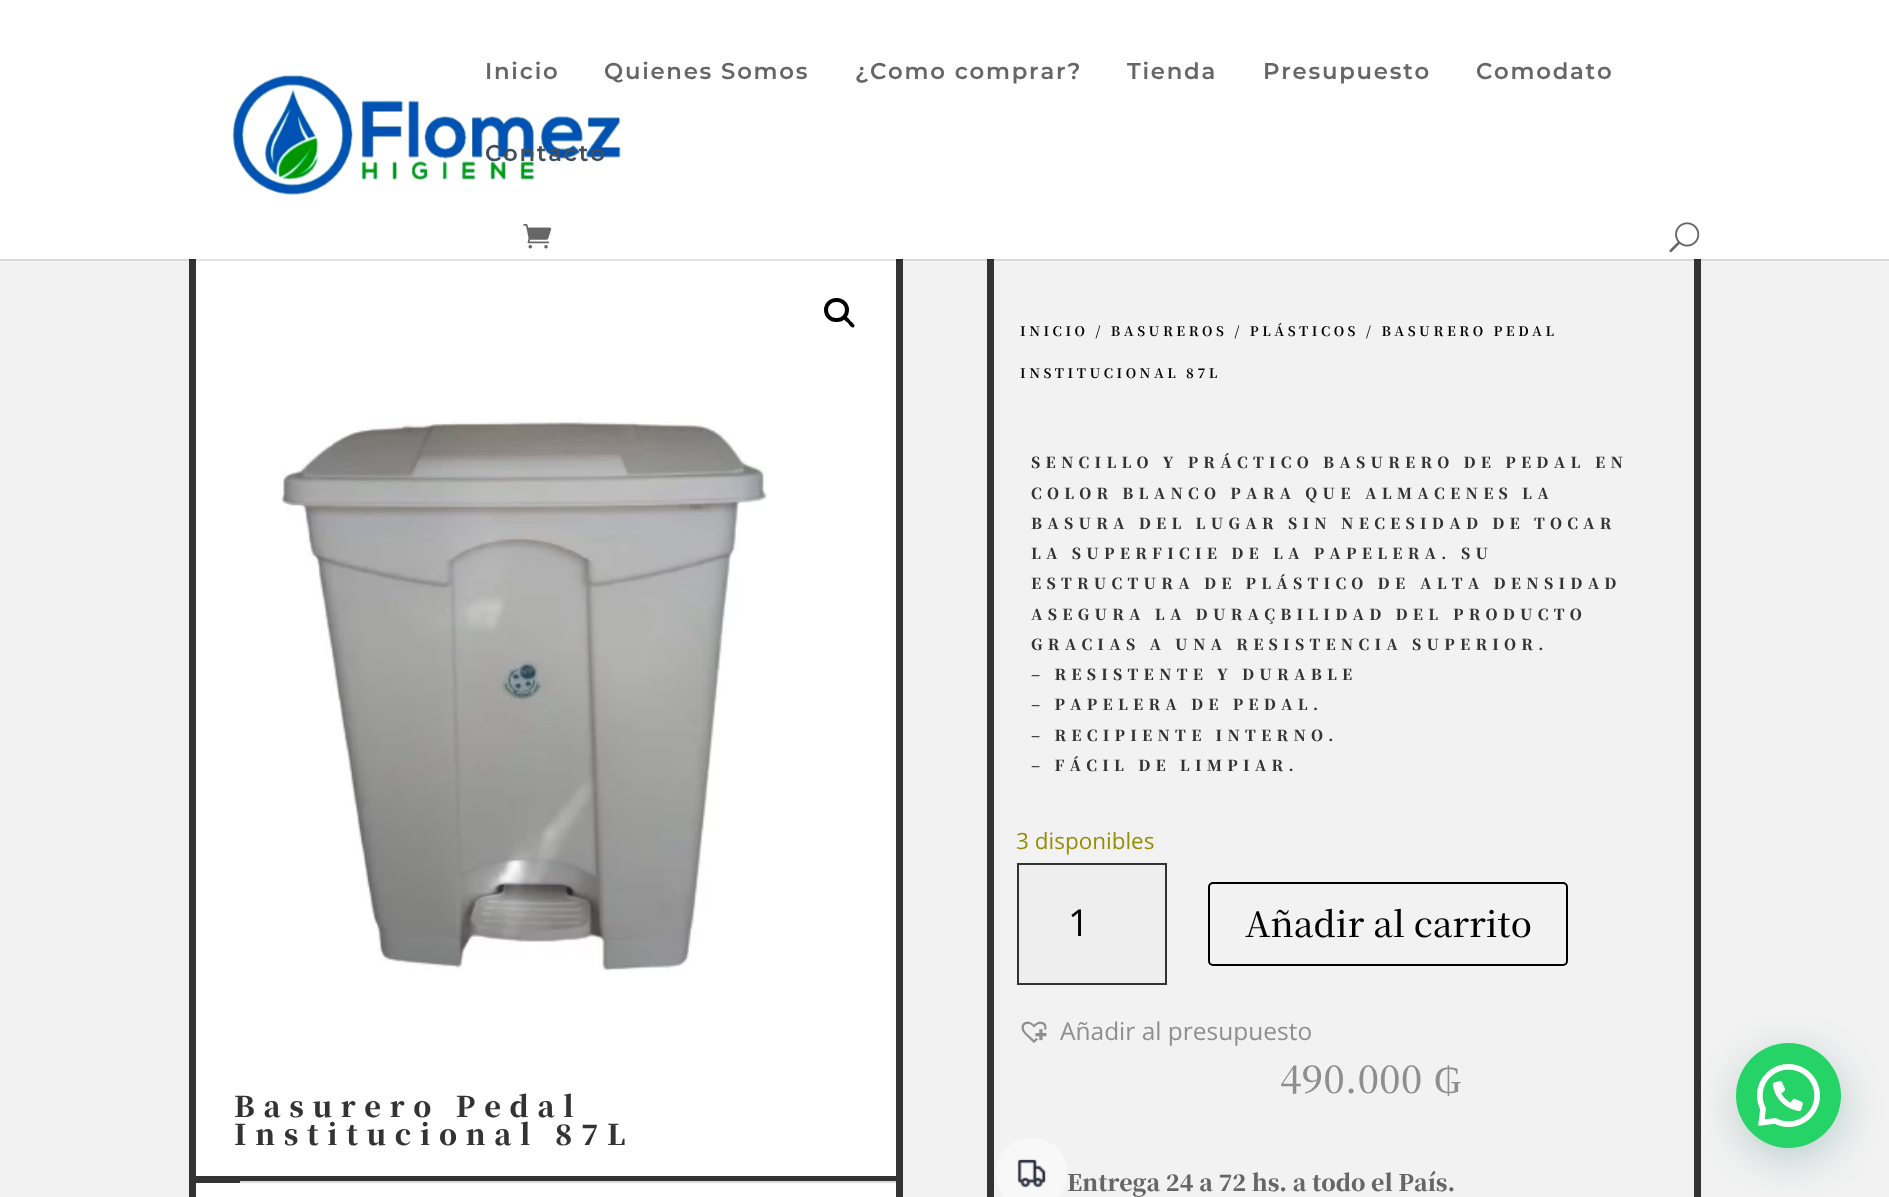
(async () => {
    const canvas = document.querySelector("canvas");
    canvas.width = 1889;
    canvas.height = 1197;
    const context = canvas.getContext("2d");
    context.miterLimit = 4;
    context.fontKerning = "none";
    function write(s, x, y, font, color) {
        context.font = font;
        context.fillStyle = color;
        context.fillText(s, x, y);
    }
    function block(x, y, w, h, color) {
        context.fillStyle = color;
        context.fillRect(x, y, w, h);
    }
    async function photo(src, x, y, w, h) {
        const img = new Image();
        img.src = src;
        await img.decode();
        context.drawImage(img, x, y, w, h);
    }

    block(0, 0, 1889, 1197, "rgb(242, 242, 242)");
    block(196, 259, 700, 938, "rgb(255, 255, 255)");
    context.strokeStyle = "rgb(51, 51, 51)";
    context.lineWidth = 7;
    context.strokeRect(192.5, 253.5, 707, 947);
    context.strokeRect(990.5, 253.5, 707, 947);
    block(0, 259, 1889, 2, "rgba(0, 0, 0, 0.1)");
    block(0, 0, 1889, 259, "rgb(255, 255, 255)");
    await photo("media/1.png", 232, 75, 389, 120);
    context.letterSpacing = "1.75px";
    write("Inicio", 485, 79, "600 22.75px Montserrat", "rgb(102, 102, 102)");
    write("Quienes Somos", 604, 79, "600 22.75px Montserrat", "rgb(102, 102, 102)");
    write("¿Como comprar?", 855, 79, "600 22.75px Montserrat", "rgb(102, 102, 102)");
    write("Tienda", 1127, 79, "600 22.75px Montserrat", "rgb(102, 102, 102)");
    write("Presupuesto", 1263, 79, "600 22.75px Montserrat", "rgb(102, 102, 102)");
    write("Comodato", 1476, 79, "600 22.75px Montserrat", "rgb(102, 102, 102)");
    write("Contacto", 485, 161, "600 22.75px Montserrat", "rgb(67, 78, 91)");
    await photo("media/2.png", 523, 224, 29, 25);
    await photo("media/3.png", 1669, 222, 31, 31);
    context.beginPath();
    context.roundRect(826, 300, 21, 20, 10);
    context.strokeStyle = "rgb(0, 0, 0)";
    context.lineWidth = 4;
    context.stroke();
    context.fillStyle = "rgb(0, 0, 0)";
    context.beginPath();
    context.moveTo(844, 317);
    context.bezierCurveTo(846, 315, 849.5, 319.5, 850.5, 321);
    context.bezierCurveTo(851.5, 322, 856, 325, 854, 327);
    context.bezierCurveTo(852, 329, 849, 324.5, 848, 323);
    context.bezierCurveTo(847, 322, 842, 319, 844, 317);
    context.closePath();
    context.fill();
    await photo("media/4.png", 281, 419, 486, 552);
    block(196, 1176, 700, 7, "rgb(51, 51, 51)");
    context.letterSpacing = "8.75px";
    write("Basurero Pedal", 234, 1117, "900 28.4px Noto Serif KR", "rgb(51, 51, 51)");
    write("Institucional 87L", 234, 1145, "900 28.4px Noto Serif KR", "rgb(51, 51, 51)");
    block(240, 1181, 656, 2, "rgb(218, 218, 218)");
    context.letterSpacing = "3.5px";
    write("INICIO / BASUREROS / PLÁSTICOS / BASURERO PEDAL", 1020, 336, "bold 13.25px Noto Serif KR", "rgb(0, 0, 0)");
    write("INSTITUCIONAL 87L", 1020, 378, "bold 13.25px Noto Serif KR", "rgb(0, 0, 0)");
    context.letterSpacing = "5.25px";
    write("SENCILLO Y PRÁCTICO BASURERO DE PEDAL", 1031, 468, "900 15.1px Noto Serif KR", "rgb(51, 51, 51)");
    write("EN", 1595, 468, "900 15.1px Noto Serif KR", "rgb(51, 51, 51)");
    write("COLOR BLANCO PARA QUE", 1031, 499, "900 15.1px Noto Serif KR", "rgb(51, 51, 51)");
    write("ALMACENES LA", 1365, 499, "900 15.1px Noto Serif KR", "rgb(51, 51, 51)");
    write("BASURA DEL LUGAR", 1031, 529, "900 15.1px Noto Serif KR", "rgb(51, 51, 51)");
    write("SIN NECESIDAD DE TOCAR", 1288, 529, "900 15.1px Noto Serif KR", "rgb(51, 51, 51)");
    write("LA SUPERFICIE DE LA PAPELERA.", 1031, 559, "900 15.1px Noto Serif KR", "rgb(51, 51, 51)");
    write("SU", 1461, 559, "900 15.1px Noto Serif KR", "rgb(51, 51, 51)");
    write("ESTRUCTURA DE PLÁSTICO DE", 1031, 589, "900 15.1px Noto Serif KR", "rgb(51, 51, 51)");
    write("ALTA DENSIDAD", 1420, 589, "900 15.1px Noto Serif KR", "rgb(51, 51, 51)");
    write("ASEGURA LA DURAÇBILIDAD DEL", 1031, 620, "900 15.1px Noto Serif KR", "rgb(51, 51, 51)");
    write("PRODUCTO", 1453, 620, "900 15.1px Noto Serif KR", "rgb(51, 51, 51)");
    write("GRACIAS A UNA RESISTENCIA SUPERIOR.", 1031, 650, "900 15.1px Noto Serif KR", "rgb(51, 51, 51)");
    write("– RESISTENTE Y DURABLE", 1031, 680, "900 15.1px Noto Serif KR", "rgb(51, 51, 51)");
    write("– PAPELERA DE PEDAL.", 1031, 710, "900 15.1px Noto Serif KR", "rgb(51, 51, 51)");
    write("– RECIPIENTE INTERNO.", 1031, 741, "900 15.1px Noto Serif KR", "rgb(51, 51, 51)");
    write("– FÁCIL DE LIMPIAR.", 1031, 771, "900 15.1px Noto Serif KR", "rgb(51, 51, 51)");
    context.letterSpacing = "0px";
    write("3 disponibles", 1016, 849, "22.5px Open Sans", "rgb(149, 142, 9)");
    context.fillStyle = "rgb(238, 238, 238)";
    context.beginPath();
    context.rect(1018, 864, 148, 120);
    context.fill();
    context.strokeStyle = "rgb(51, 51, 51)";
    context.lineWidth = 2;
    context.stroke();
    write("1", 1068, 936, "37px Open Sans", "rgb(0, 0, 0)");
    context.beginPath();
    context.roundRect(1209, 883, 358, 82, 4);
    context.strokeStyle = "rgb(0, 0, 0)";
    context.stroke();
    write("Añadir al carrito", 1245, 937, "500 35px Noto Serif KR", "rgb(0, 0, 0)");
    await photo("media/5.png", 1021, 1021, 26, 22);
    write("Añadir al presupuesto", 1060, 1040, "24.5px Open Sans", "rgb(142, 142, 142)");
    write("490.000", 1280, 1093, "500 38.5px Noto Serif KR", "rgb(142, 142, 142)");
    write("₲", 1434, 1093, "38.5px Liberation Serif", "rgb(142, 142, 142)");
    await photo("media/6.png", 996, 1138, 71, 59);
    write("Entrega 24 a 72 hs. a todo el País.", 1067, 1191, "900 22.75px Noto Serif KR", "rgb(102, 102, 102)");
    context.fillStyle = "rgba(7, 94, 84, 0.24)";
    context.filter = "blur(21px)";
    context.beginPath();
    context.roundRect(1738, 1054, 105, 105, 52.5);
    context.fill();
    context.filter = "none";
    context.fillStyle = "rgb(37, 211, 102)";
    context.beginPath();
    context.arc(1788.5, 1095.5, 52.5, 0, Math.PI * 2);
    context.fill();
    await photo("media/7.png", 1757, 1064, 63, 63);
})();
